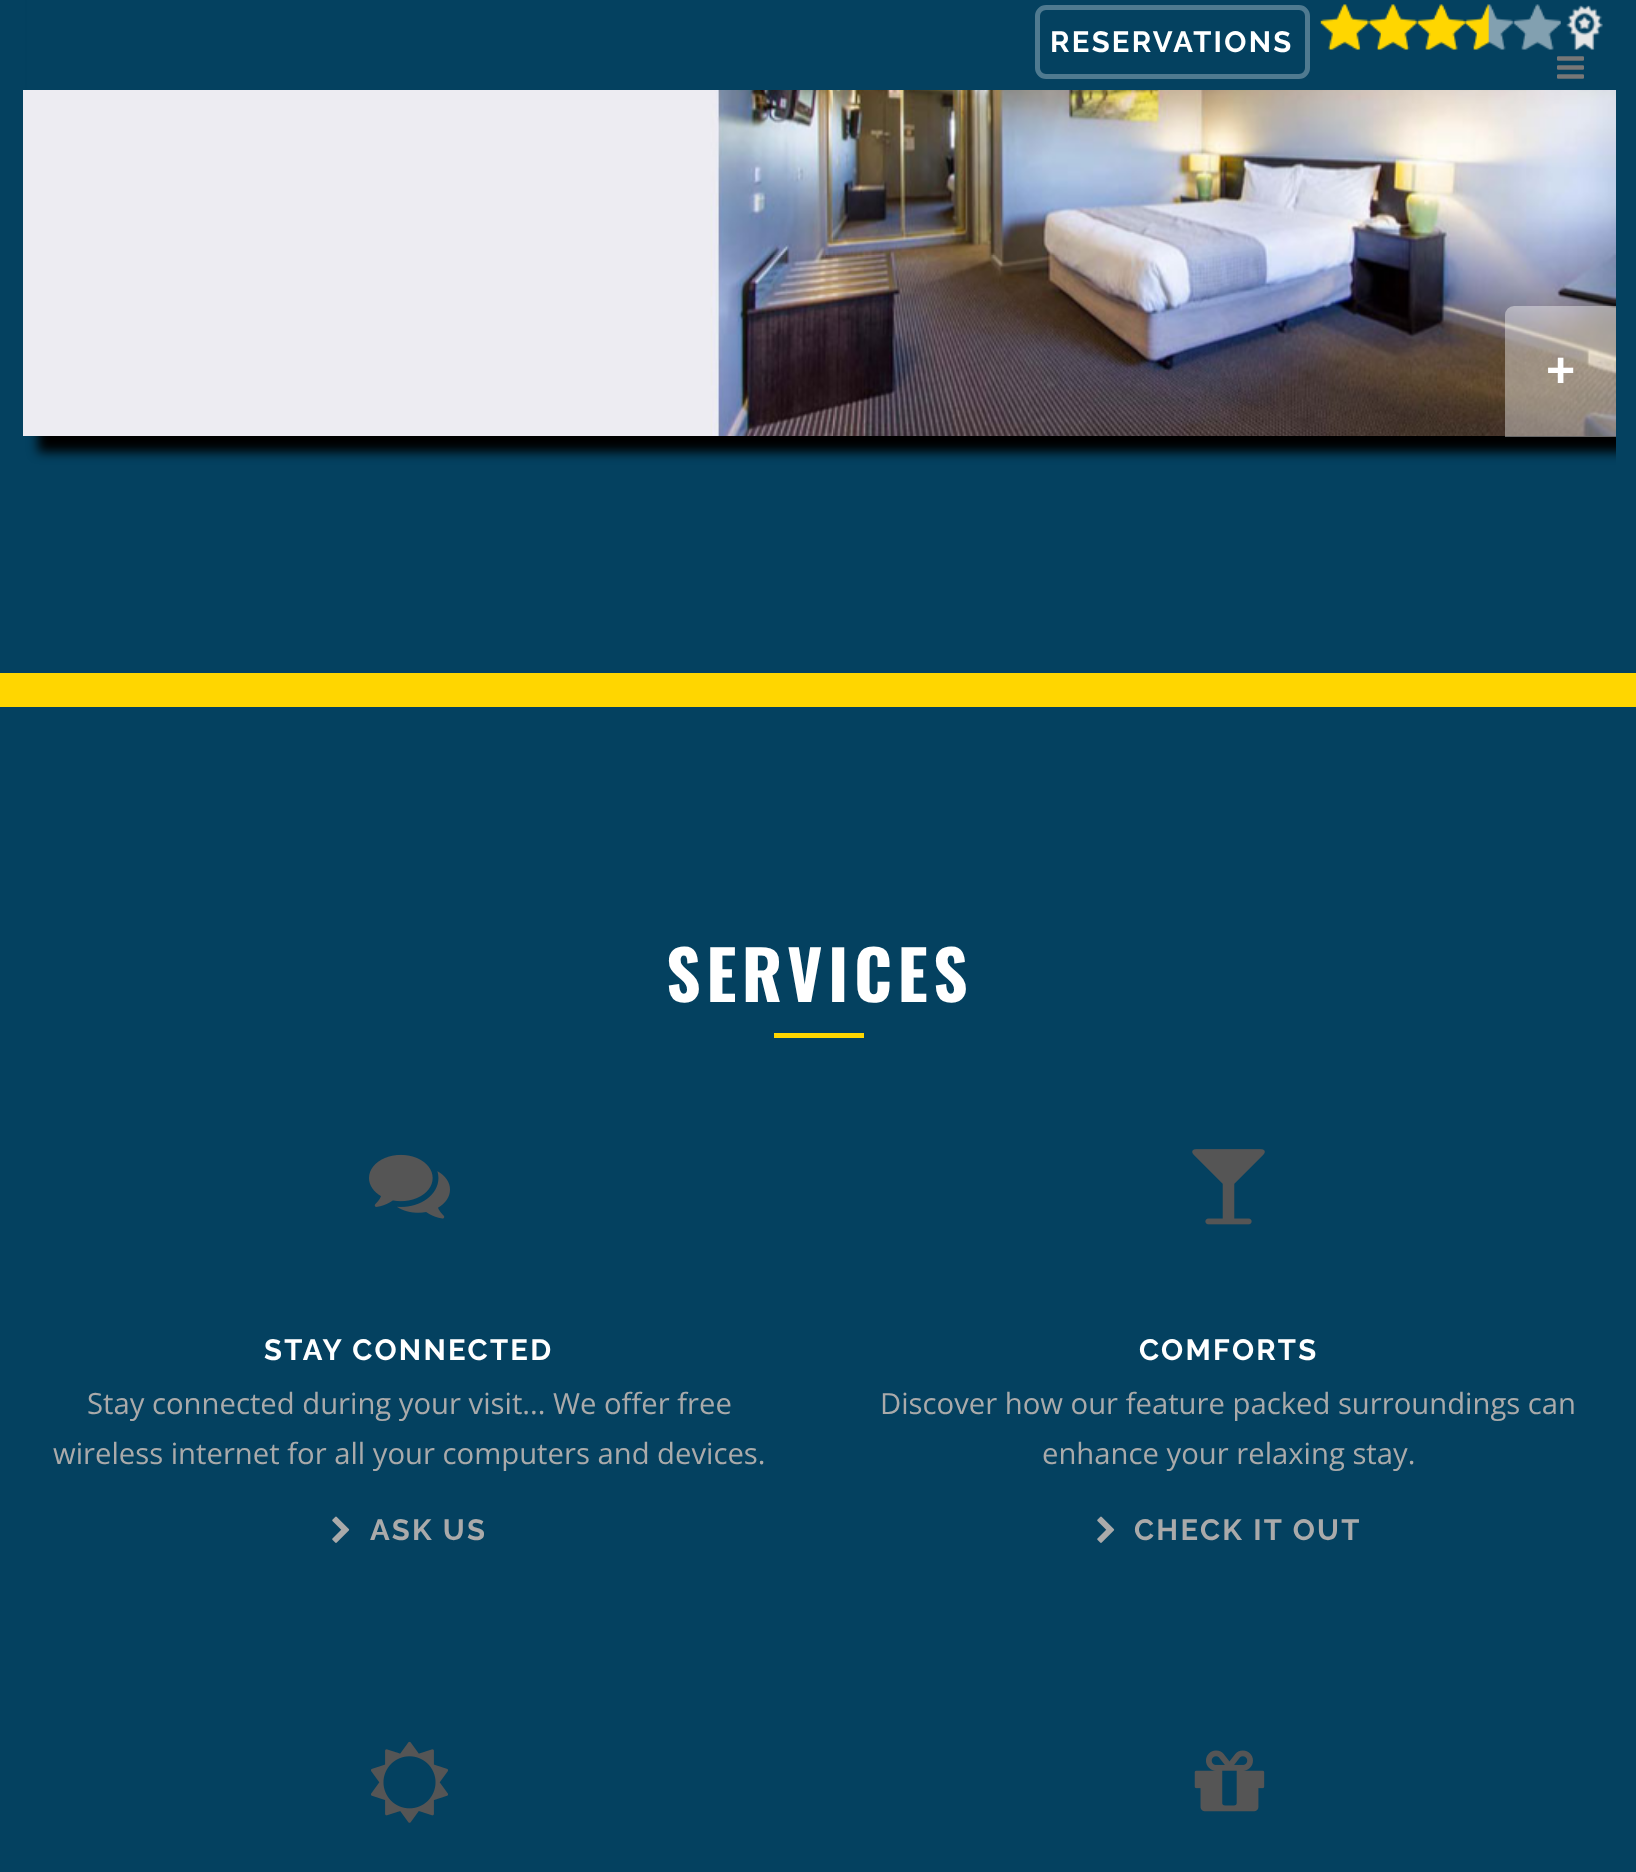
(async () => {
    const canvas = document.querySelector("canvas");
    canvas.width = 1636;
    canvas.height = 1872;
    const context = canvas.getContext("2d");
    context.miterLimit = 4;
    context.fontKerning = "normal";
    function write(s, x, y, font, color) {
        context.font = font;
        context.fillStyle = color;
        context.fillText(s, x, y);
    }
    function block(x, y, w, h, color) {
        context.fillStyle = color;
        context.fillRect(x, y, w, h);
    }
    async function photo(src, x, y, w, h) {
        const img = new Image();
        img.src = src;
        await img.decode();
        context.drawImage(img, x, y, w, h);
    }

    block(0, 0, 1636, 1872, "rgb(4, 65, 96)");
    context.save();
    context.beginPath();
    context.rect(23, 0, 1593, 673);
    context.clip();
    context.fillStyle = "rgb(0, 0, 0)";
    context.filter = "blur(5.5px)";
    context.beginPath();
    context.rect(38, -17, 1593, 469);
    context.fill();
    context.filter = "none";
    context.restore();
    block(27, 0, 1589, 90, "rgb(4, 65, 96)");
    context.beginPath();
    context.roundRect(1037.5, 7.5, 270, 69, 8.5);
    context.strokeStyle = "rgb(79, 122, 144)";
    context.lineWidth = 5;
    context.stroke();
    context.letterSpacing = "2.3px";
    write("RESERVATIONS", 1050, 52, "bold 29.25px Raleway", "rgb(255, 255, 255)");
    await photo("media/1.png", 1320, 4, 283, 46);
    await photo("media/2.png", 1557, 56, 27, 23);
    block(0, 673, 1636, 34, "rgb(255, 214, 0)");
    await photo("media/3.png", 23, 90, 1593, 346);
    context.fillStyle = "rgba(255, 255, 255, 0.4)";
    context.beginPath();
    context.roundRect(1505, 306, 111, 131, [9, 0, 0, 0]);
    context.fill();
    context.letterSpacing = "0px";
    write("+", 1546, 387, "bold 50px Liberation Sans", "rgb(255, 255, 255)");
    context.letterSpacing = "5.5px";
    write("SERVICES", 666, 1002, "bold 67.5px Oswald", "rgb(255, 255, 255)");
    block(774, 1033, 90, 5, "rgb(255, 214, 0)");
    await photo("media/4.png", 369, 1154, 81, 65);
    context.letterSpacing = "2.3px";
    write("STAY CONNECTED", 264, 1360, "bold 29.25px Raleway", "rgb(255, 255, 255)");
    context.letterSpacing = "0px";
    write("Stay connected during your visit... We offer free", 87, 1414, "29.25px Open Sans", "rgb(170, 170, 170)");
    write("wireless internet for all your computers and devices.", 53, 1464, "29.25px Open Sans", "rgb(170, 170, 170)");
    await photo("media/5.png", 332, 1516, 18, 27);
    context.letterSpacing = "2.3px";
    write("ASK US", 370, 1540, "bold 29.25px Raleway", "rgb(170, 170, 170)");
    await photo("media/6.png", 1192, 1149, 73, 76);
    write("COMFORTS", 1139, 1360, "bold 29.25px Raleway", "rgb(255, 255, 255)");
    context.letterSpacing = "0px";
    write("Discover how our feature packed surroundings can", 880, 1414, "29.25px Open Sans", "rgb(170, 170, 170)");
    write("enhance your relaxing stay.", 1042, 1464, "29.25px Open Sans", "rgb(170, 170, 170)");
    await photo("media/5.png", 1097, 1516, 18, 27);
    context.letterSpacing = "2.3px";
    write("CHECK IT OUT", 1134, 1540, "bold 29.25px Raleway", "rgb(170, 170, 170)");
    await photo("media/7.png", 371, 1741, 77, 82);
    await photo("media/8.png", 1194, 1750, 71, 62);
})();
